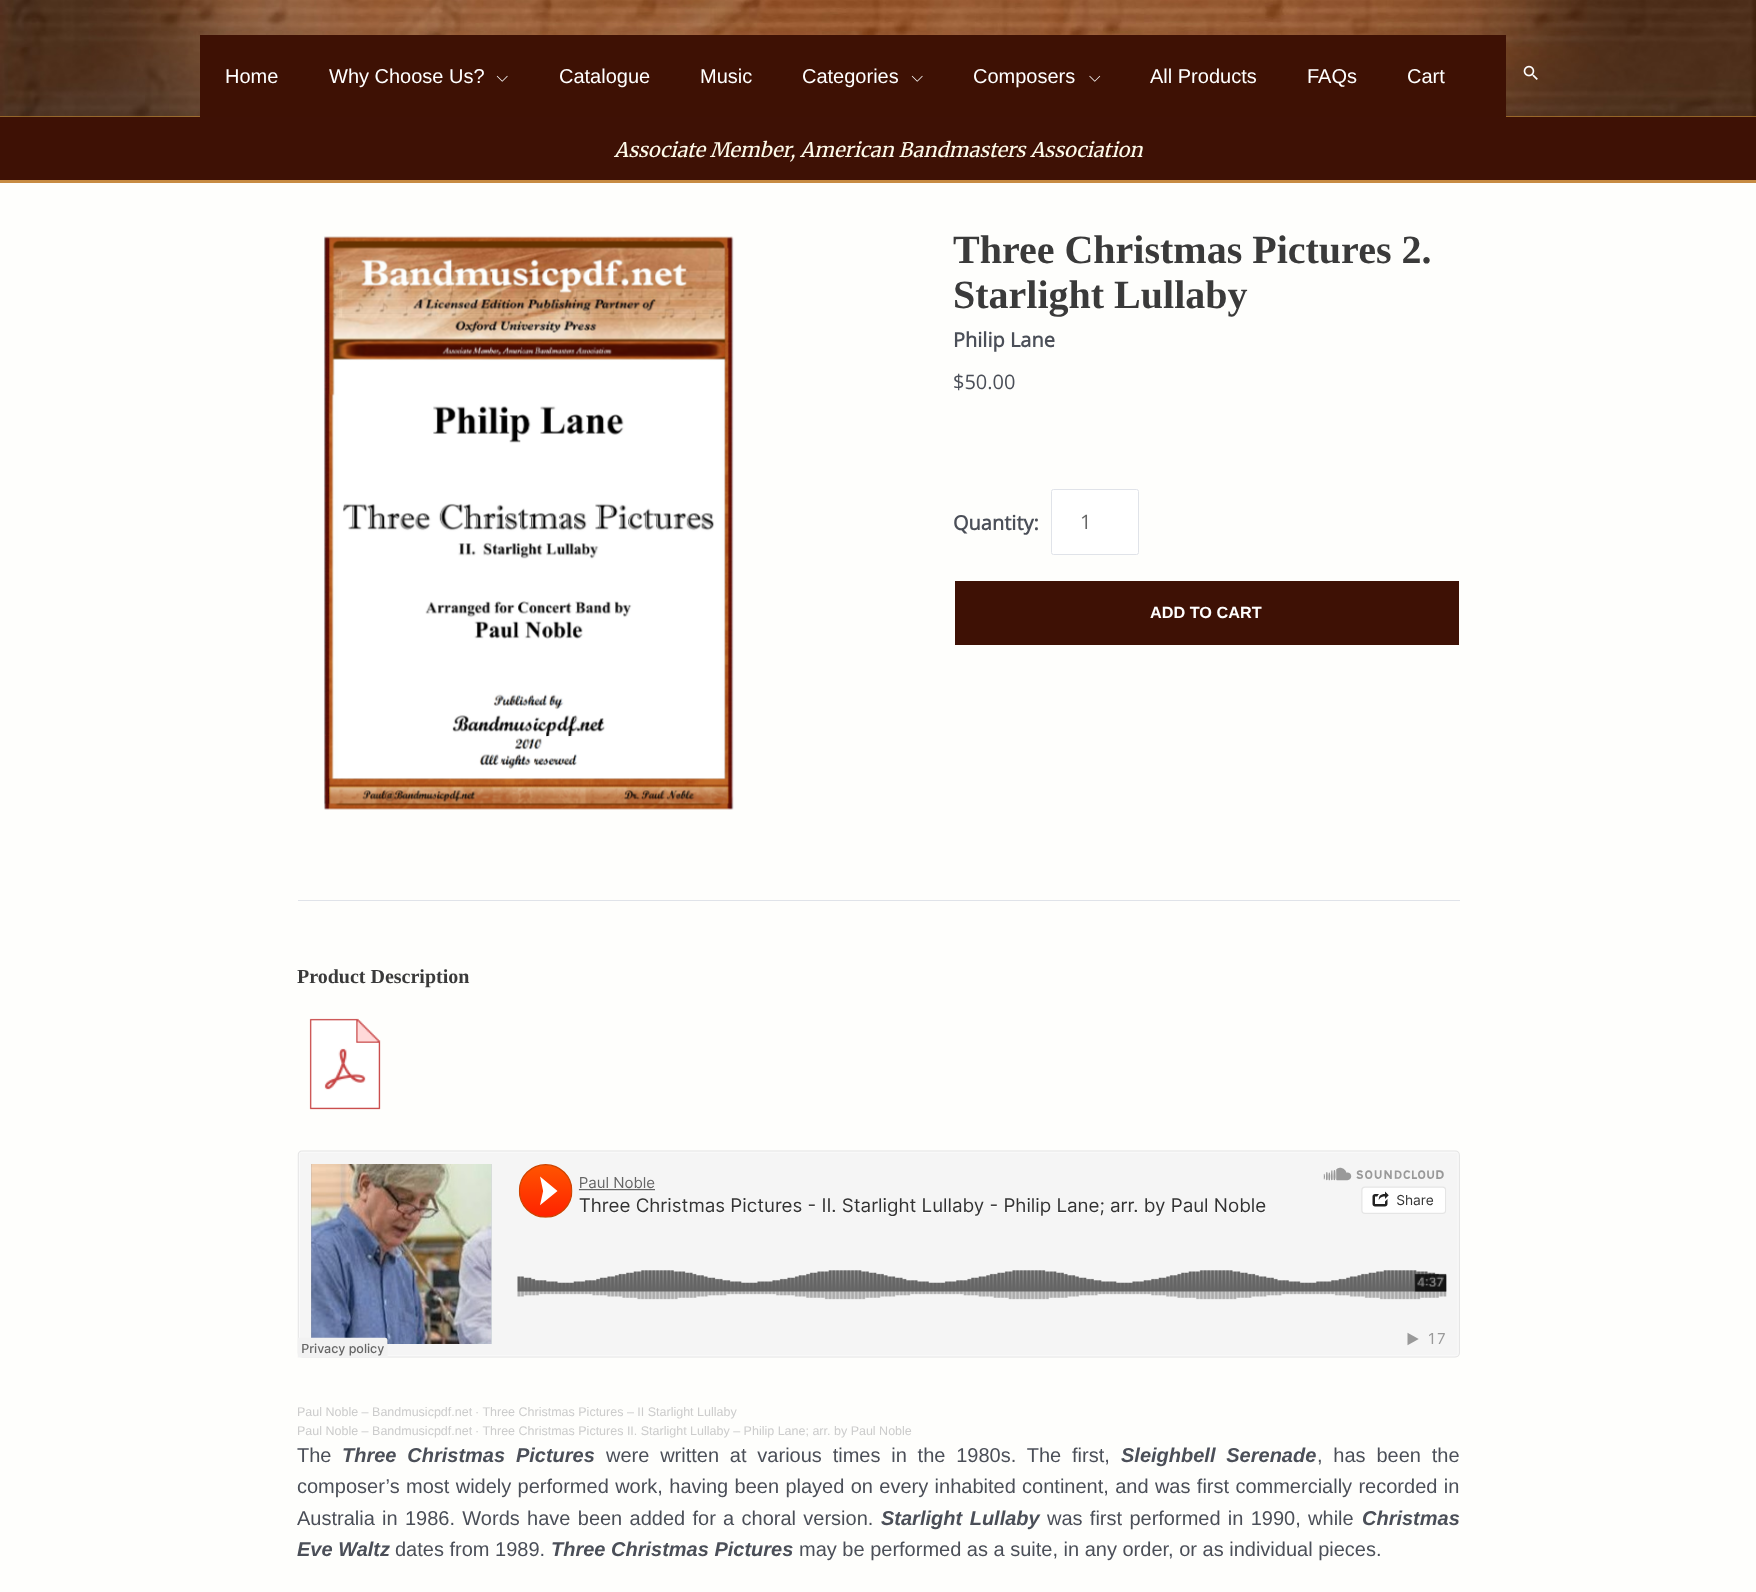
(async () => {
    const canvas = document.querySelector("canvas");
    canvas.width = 1756;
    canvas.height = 1592;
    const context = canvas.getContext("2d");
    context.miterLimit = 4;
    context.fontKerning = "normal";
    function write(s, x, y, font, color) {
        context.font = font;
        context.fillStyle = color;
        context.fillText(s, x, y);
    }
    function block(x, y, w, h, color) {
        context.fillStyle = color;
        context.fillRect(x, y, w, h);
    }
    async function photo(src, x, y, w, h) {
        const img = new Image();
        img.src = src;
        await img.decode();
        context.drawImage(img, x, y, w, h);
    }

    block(0, 0, 1756, 1592, "rgb(254, 254, 252)");
    block(0, 116, 1756, 1, "rgb(221, 153, 51)");
    await photo("media/1.png", 0, 0, 1756, 117);
    block(200, 35, 1306, 82, "rgb(62, 17, 4)");
    write("Home", 225, 83, "20px Liberation Sans", "rgb(255, 255, 255)");
    write("Why Choose Us?", 329, 83, "20px Liberation Sans", "rgb(255, 255, 255)");
    await photo("media/2.png", 496, 75, 12, 7);
    write("Catalogue", 559, 83, "20px Liberation Sans", "rgb(255, 255, 255)");
    write("Music", 700, 83, "20px Liberation Sans", "rgb(255, 255, 255)");
    write("Categories", 802, 83, "20px Liberation Sans", "rgb(255, 255, 255)");
    await photo("media/2.png", 911, 75, 12, 7);
    write("Composers", 973, 83, "20px Liberation Sans", "rgb(255, 255, 255)");
    await photo("media/3.png", 1089, 75, 12, 7);
    write("All Products", 1150, 83, "20px Liberation Sans", "rgb(255, 255, 255)");
    write("FAQs", 1307, 83, "20px Liberation Sans", "rgb(255, 255, 255)");
    write("Cart", 1407, 83, "20px Liberation Sans", "rgb(255, 255, 255)");
    await photo("media/4.png", 1523, 65, 15, 15);
    block(0, 117, 1756, 63, "rgb(62, 17, 5)");
    block(0, 180, 1756, 3, "rgb(199, 139, 67)");
    write("Associate Member, American Bandmasters Association", 614, 157, "italic 20px Merriweather", "rgb(254, 251, 234)");
    await photo("media/5.png", 323, 236, 411, 574);
    write("Three Christmas Pictures 2.", 953, 263, "bold 40px Liberation Serif", "rgb(58, 58, 58)");
    write("Starlight Lullaby", 953, 308, "bold 40px Liberation Serif", "rgb(58, 58, 58)");
    write("Philip Lane", 953, 347, "bold 20px Open Sans", "rgb(75, 79, 88)");
    write("$50.00", 953, 389, "20px Open Sans", "rgb(75, 79, 88)");
    write("Quantity:", 953, 530, "bold 20px Open Sans", "rgb(75, 79, 88)");
    context.fillStyle = "rgb(255, 255, 255)";
    context.beginPath();
    context.roundRect(1051.5, 489.5, 87, 65, 2);
    context.fill();
    context.strokeStyle = "rgb(224, 227, 233)";
    context.stroke();
    write("1", 1080, 529, "20px Open Sans", "rgb(102, 102, 102)");
    block(955, 581, 504, 64, "rgb(62, 17, 5)");
    write("ADD TO CART", 1150, 618, "bold 16.25px Liberation Sans", "rgb(255, 255, 255)");
    block(298, 900, 1162, 1, "rgb(224, 227, 233)");
    write("Product Description", 297, 983, "bold 20px Liberation Serif", "rgb(58, 58, 58)");
    await photo("media/6.png", 309, 1018, 72, 92);
    await photo("media/7.png", 297, 1150, 1163, 208);
    context.save();
    context.beginPath();
    context.rect(298, 1403, 1162, 18);
    context.clip();
    write("Paul Noble – Bandmusicpdf.net", 297, 1416, "12.5px Liberation Sans", "rgb(204, 204, 204)");
    context.restore();
    write("· Three Christmas Pictures – II Starlight Lullaby", 475, 1416, "12.5px Liberation Sans", "rgb(204, 204, 204)");
    context.save();
    context.beginPath();
    context.rect(298, 1421, 1162, 19);
    context.clip();
    write("Paul Noble – Bandmusicpdf.net", 297, 1435, "12.5px Liberation Sans", "rgb(204, 204, 204)");
    context.restore();
    write("· Three Christmas Pictures II. Starlight Lullaby – Philip Lane; arr. by Paul Noble", 475, 1435, "12.5px Liberation Sans", "rgb(204, 204, 204)");
    write("The", 297, 1462, "20px Liberation Sans", "rgb(75, 79, 88)");
    context.wordSpacing = "5.25px";
    write("Three Christmas Pictures", 342, 1462, "italic bold 20px Liberation Sans", "rgb(75, 79, 88)");
    write("were written at various times in the 1980s. The first,", 606, 1462, "20px Liberation Sans", "rgb(75, 79, 88)");
    write("Sleighbell Serenade", 1121, 1462, "italic bold 20px Liberation Sans", "rgb(75, 79, 88)");
    write(", has been the", 1317, 1462, "20px Liberation Sans", "rgb(75, 79, 88)");
    context.wordSpacing = "0.8px";
    write("composer’s most widely performed work, having been played on every inhabited continent, and was first commercially recorded in", 297, 1493, "20px Liberation Sans", "rgb(75, 79, 88)");
    context.wordSpacing = "1.75px";
    write("Australia in 1986. Words have been added for a choral version.", 297, 1525, "20px Liberation Sans", "rgb(75, 79, 88)");
    context.wordSpacing = "2px";
    write("Starlight Lullaby", 881, 1525, "italic bold 20px Liberation Sans", "rgb(75, 79, 88)");
    context.wordSpacing = "1.75px";
    write("was first performed in 1990, while", 1047, 1525, "20px Liberation Sans", "rgb(75, 79, 88)");
    context.wordSpacing = "0px";
    write("Christmas", 1362, 1525, "italic bold 20px Liberation Sans", "rgb(75, 79, 88)");
    write("Eve Waltz", 297, 1556, "italic bold 20px Liberation Sans", "rgb(75, 79, 88)");
    write("dates from 1989.", 395, 1556, "20px Liberation Sans", "rgb(75, 79, 88)");
    write("Three Christmas Pictures", 551, 1556, "italic bold 20px Liberation Sans", "rgb(75, 79, 88)");
    write("may be performed as a suite, in any order, or as individual pieces.", 799, 1556, "20px Liberation Sans", "rgb(75, 79, 88)");
})();
